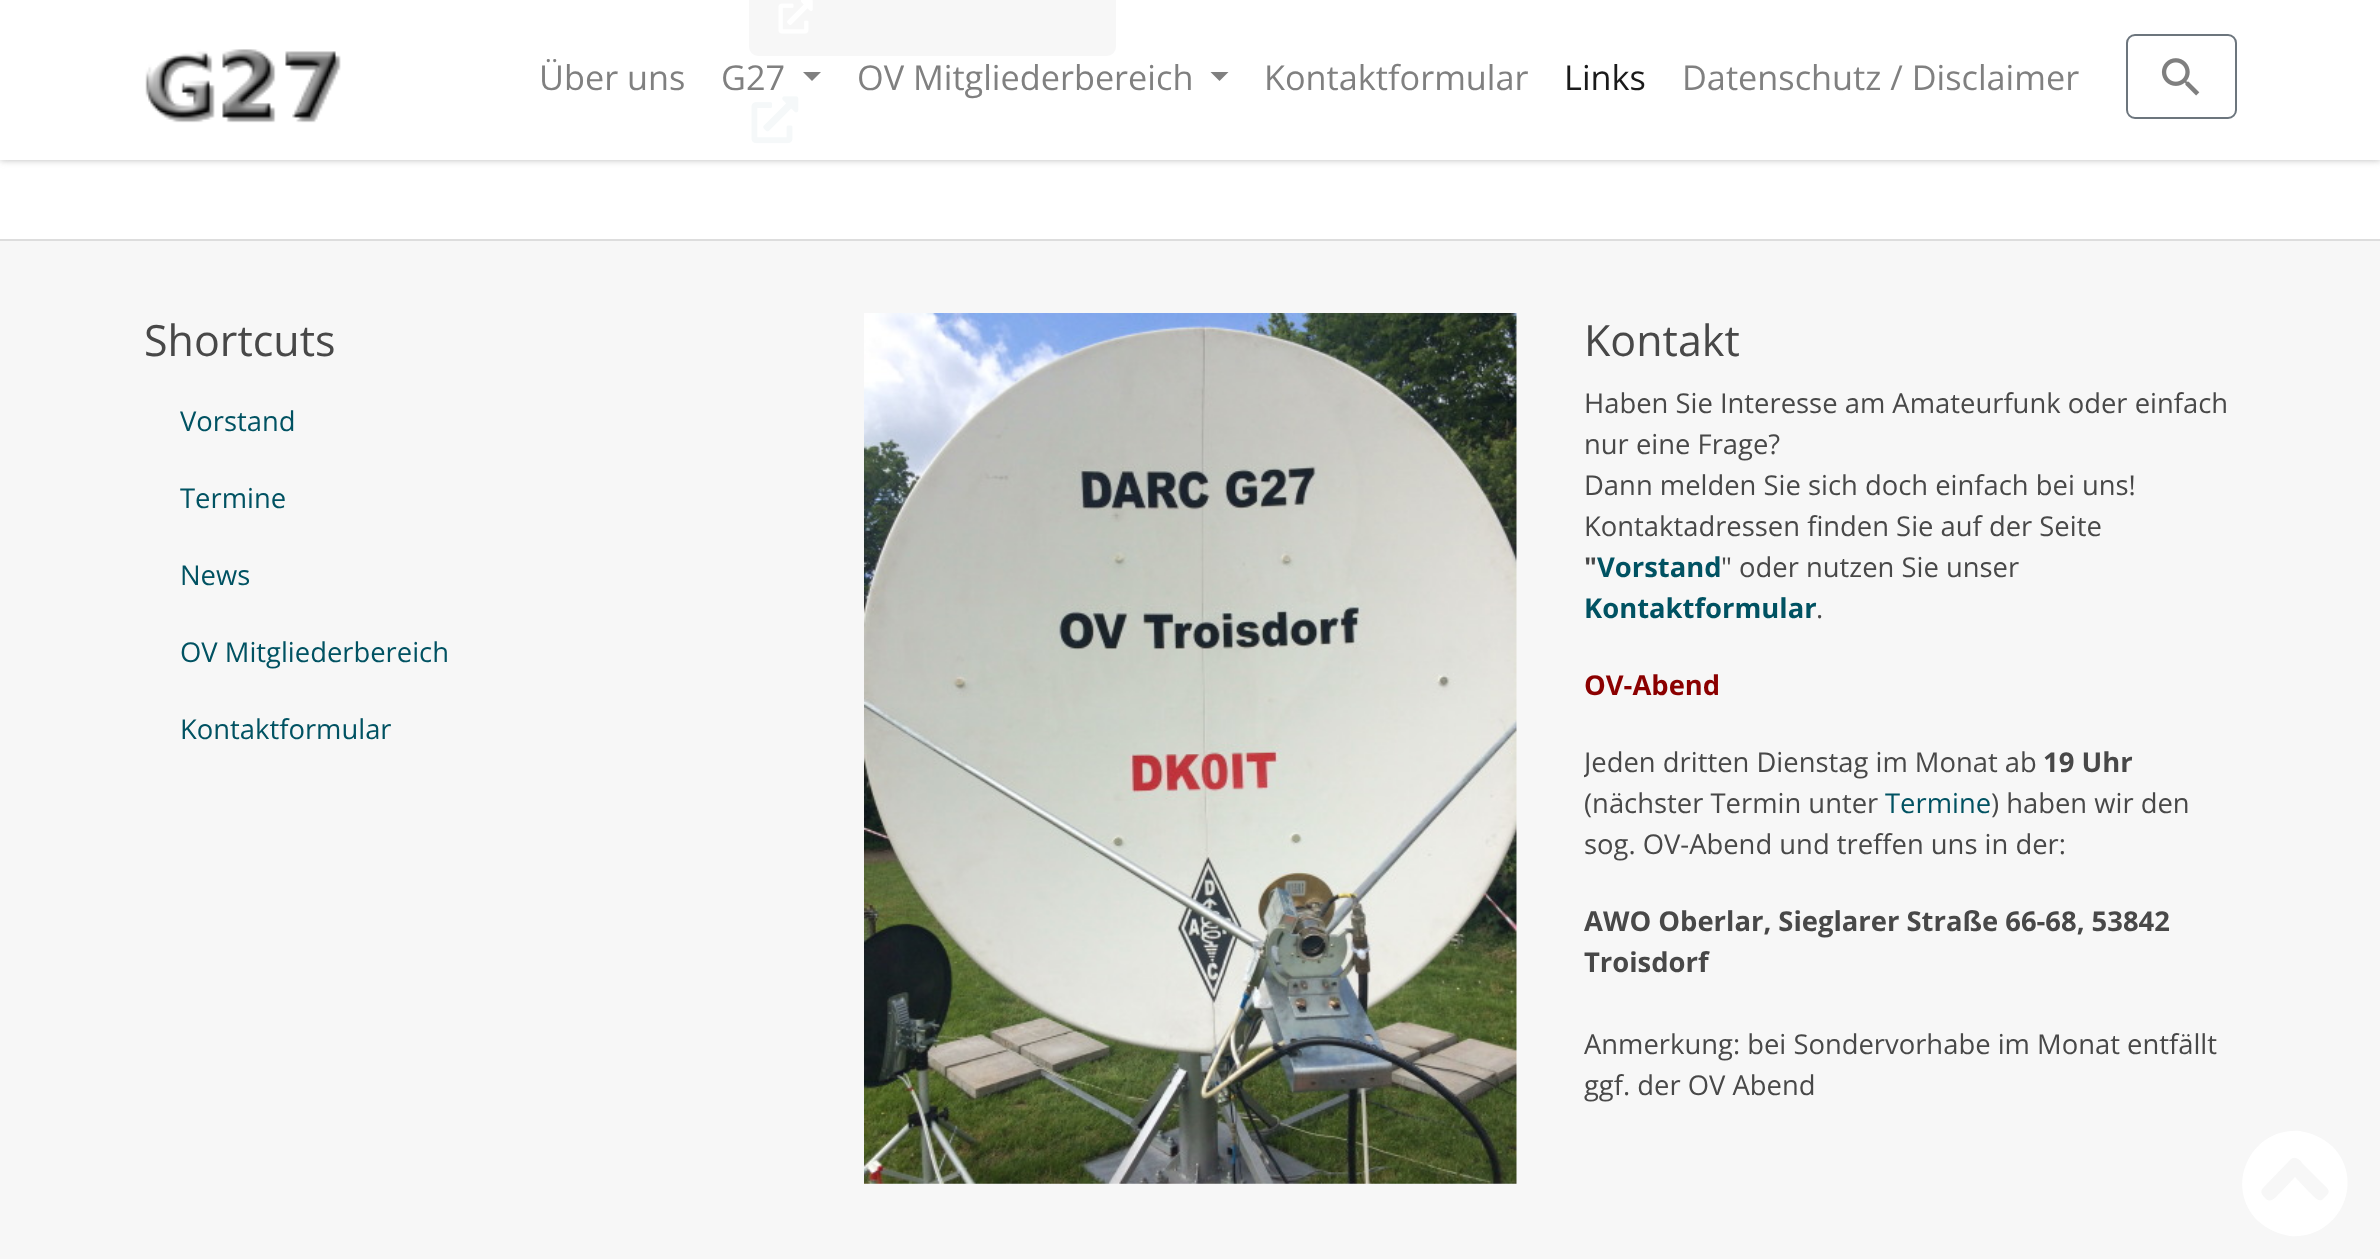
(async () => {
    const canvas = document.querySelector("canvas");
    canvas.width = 2380;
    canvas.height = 1259;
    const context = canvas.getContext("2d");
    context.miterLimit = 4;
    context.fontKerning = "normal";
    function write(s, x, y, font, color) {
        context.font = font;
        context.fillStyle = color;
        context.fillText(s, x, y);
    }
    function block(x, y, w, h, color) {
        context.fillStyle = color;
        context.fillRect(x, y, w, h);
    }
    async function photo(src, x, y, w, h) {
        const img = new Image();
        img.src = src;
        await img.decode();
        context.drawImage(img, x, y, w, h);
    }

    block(0, 0, 2380, 1259, "rgb(255, 255, 255)");
    context.fillStyle = "rgb(52, 58, 64)";
    context.beginPath();
    context.roundRect(750, -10, 365, 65, 8);
    context.fill();
    context.strokeStyle = "rgb(52, 58, 64)";
    context.lineWidth = 2;
    context.stroke();
    await photo("media/1.png", 778, 0, 35, 34);
    await photo("media/2.png", 751, 96, 48, 48);
    context.save();
    context.beginPath();
    context.moveTo(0, 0);
    context.lineTo(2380, 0);
    context.lineTo(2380, 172);
    context.lineTo(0, 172);
    context.closePath();
    context.moveTo(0, -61);
    context.lineTo(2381, -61);
    context.lineTo(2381, 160);
    context.lineTo(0, 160);
    context.closePath();
    context.clip("evenodd");
    context.fillStyle = "rgb(187, 187, 187)";
    context.filter = "blur(3.5px)";
    context.beginPath();
    context.rect(0, -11, 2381, 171);
    context.fill();
    context.filter = "none";
    context.restore();
    block(0, 0, 2380, 160, "rgba(255, 255, 255, 0.96)");
    await photo("media/3.png", 145, 49, 196, 74);
    write("Über uns", 539, 90, "34.25px Open Sans", "rgb(128, 128, 128)");
    write("G27", 721, 90, "34.25px Open Sans", "rgb(128, 128, 128)");
    context.beginPath();
    context.moveTo(803, 72);
    context.lineTo(821, 72);
    context.lineTo(812, 81);
    context.closePath();
    context.fill();
    write("OV Mitgliederbereich", 857, 90, "34.25px Open Sans", "rgb(128, 128, 128)");
    context.beginPath();
    context.moveTo(1210.5, 72);
    context.lineTo(1228.5, 72);
    context.lineTo(1219.5, 81);
    context.closePath();
    context.fill();
    write("Kontaktformular", 1264, 90, "34.25px Open Sans", "rgb(128, 128, 128)");
    write("Links", 1564, 90, "34.25px Open Sans", "rgb(26, 26, 26)");
    write("Datenschutz / Disclaimer", 1682, 90, "34.25px Open Sans", "rgb(128, 128, 128)");
    context.beginPath();
    context.roundRect(2127, 35, 109, 83, 8);
    context.strokeStyle = "rgb(108, 117, 125)";
    context.stroke();
    await photo("media/4.png", 2161, 58, 39, 38);
    block(0, 241, 2380, 1018, "rgb(247, 247, 247)");
    block(0, 239, 2380, 2, "rgb(221, 221, 221)");
    write("Shortcuts", 144, 356, "43px Open Sans", "rgb(72, 72, 72)");
    write("Vorstand", 180, 431, "27.4px Open Sans", "rgb(0, 82, 98)");
    write("Termine", 180, 508, "27.4px Open Sans", "rgb(0, 82, 98)");
    write("News", 180, 585, "27.4px Open Sans", "rgb(0, 82, 98)");
    write("OV Mitgliederbereich", 180, 662, "27.4px Open Sans", "rgb(0, 82, 98)");
    write("Kontaktformular", 180, 739, "27.4px Open Sans", "rgb(0, 82, 98)");
    await photo("media/5.png", 864, 313, 653, 871);
    write("Kontakt", 1584, 356, "43px Open Sans", "rgb(72, 72, 72)");
    write("Haben Sie Interesse am Amateurfunk oder einfach", 1584, 413, "27.4px Open Sans", "rgb(72, 72, 72)");
    write("nur eine Frage?", 1584, 454, "27.4px Open Sans", "rgb(72, 72, 72)");
    write("Dann melden Sie sich doch einfach bei uns!", 1584, 495, "27.4px Open Sans", "rgb(72, 72, 72)");
    write("Kontaktadressen finden Sie auf der Seite", 1584, 536, "27.4px Open Sans", "rgb(72, 72, 72)");
    write("\"", 1584, 577, "bold 27.4px Open Sans", "rgb(72, 72, 72)");
    write("Vorstand", 1597, 577, "bold 27.4px Open Sans", "rgb(0, 82, 98)");
    write("\" oder nutzen Sie unser", 1721, 577, "27.4px Open Sans", "rgb(72, 72, 72)");
    write("Kontaktformular", 1584, 618, "bold 27.4px Open Sans", "rgb(0, 82, 98)");
    write(".", 1816, 618, "27.4px Open Sans", "rgb(72, 72, 72)");
    write("OV-Abend", 1584, 695, "bold 27.4px Open Sans", "rgb(139, 0, 0)");
    context.save();
    context.beginPath();
    context.rect(1584, 666, 653, 477);
    context.clip();
    write("Jeden dritten Dienstag im Monat ab", 1584, 772, "27.4px Open Sans", "rgb(72, 72, 72)");
    context.restore();
    write("19 Uhr", 2043, 772, "bold 27.4px Open Sans", "rgb(72, 72, 72)");
    write("(nächster Termin unter", 1584, 813, "27.4px Open Sans", "rgb(72, 72, 72)");
    write("Termine", 1885, 813, "27.4px Open Sans", "rgb(0, 82, 98)");
    write(") haben wir den", 1991, 813, "27.4px Open Sans", "rgb(72, 72, 72)");
    write("sog. OV-Abend und treffen uns in der:", 1584, 854, "27.4px Open Sans", "rgb(72, 72, 72)");
    write("AWO Oberlar, Sieglarer Straße 66-68, 53842", 1584, 931, "bold 27.4px Open Sans", "rgb(72, 72, 72)");
    write("Troisdorf", 1584, 972, "bold 27.4px Open Sans", "rgb(72, 72, 72)");
    write("Anmerkung: bei Sondervorhabe im Monat entfällt", 1584, 1054, "27.4px Open Sans", "rgb(72, 72, 72)");
    write("ggf. der OV Abend", 1584, 1095, "27.4px Open Sans", "rgb(72, 72, 72)");
    context.fillStyle = "rgb(255, 255, 255)";
    context.beginPath();
    context.moveTo(2258, 1221);
    context.bezierCurveTo(2223, 1186, 2251, 1127, 2300, 1131);
    context.bezierCurveTo(2312, 1133, 2323, 1138, 2332, 1146);
    context.bezierCurveTo(2367, 1181, 2339, 1240, 2290, 1236);
    context.bezierCurveTo(2278, 1234, 2267, 1229, 2258, 1221);
    context.closePath();
    context.moveTo(2291, 1159);
    context.lineTo(2263, 1188);
    context.bezierCurveTo(2259, 1192, 2263, 1196, 2266, 1199);
    context.bezierCurveTo(2272, 1204, 2277, 1195, 2281, 1192);
    context.lineTo(2295, 1177);
    context.lineTo(2309, 1192);
    context.bezierCurveTo(2312, 1194, 2317, 1202, 2322, 1200);
    context.lineTo(2326, 1196);
    context.bezierCurveTo(2332, 1191, 2327, 1188, 2322, 1183);
    context.lineTo(2303, 1164);
    context.bezierCurveTo(2301, 1161, 2296, 1155, 2291, 1159);
    context.closePath();
    context.fill();
})();
